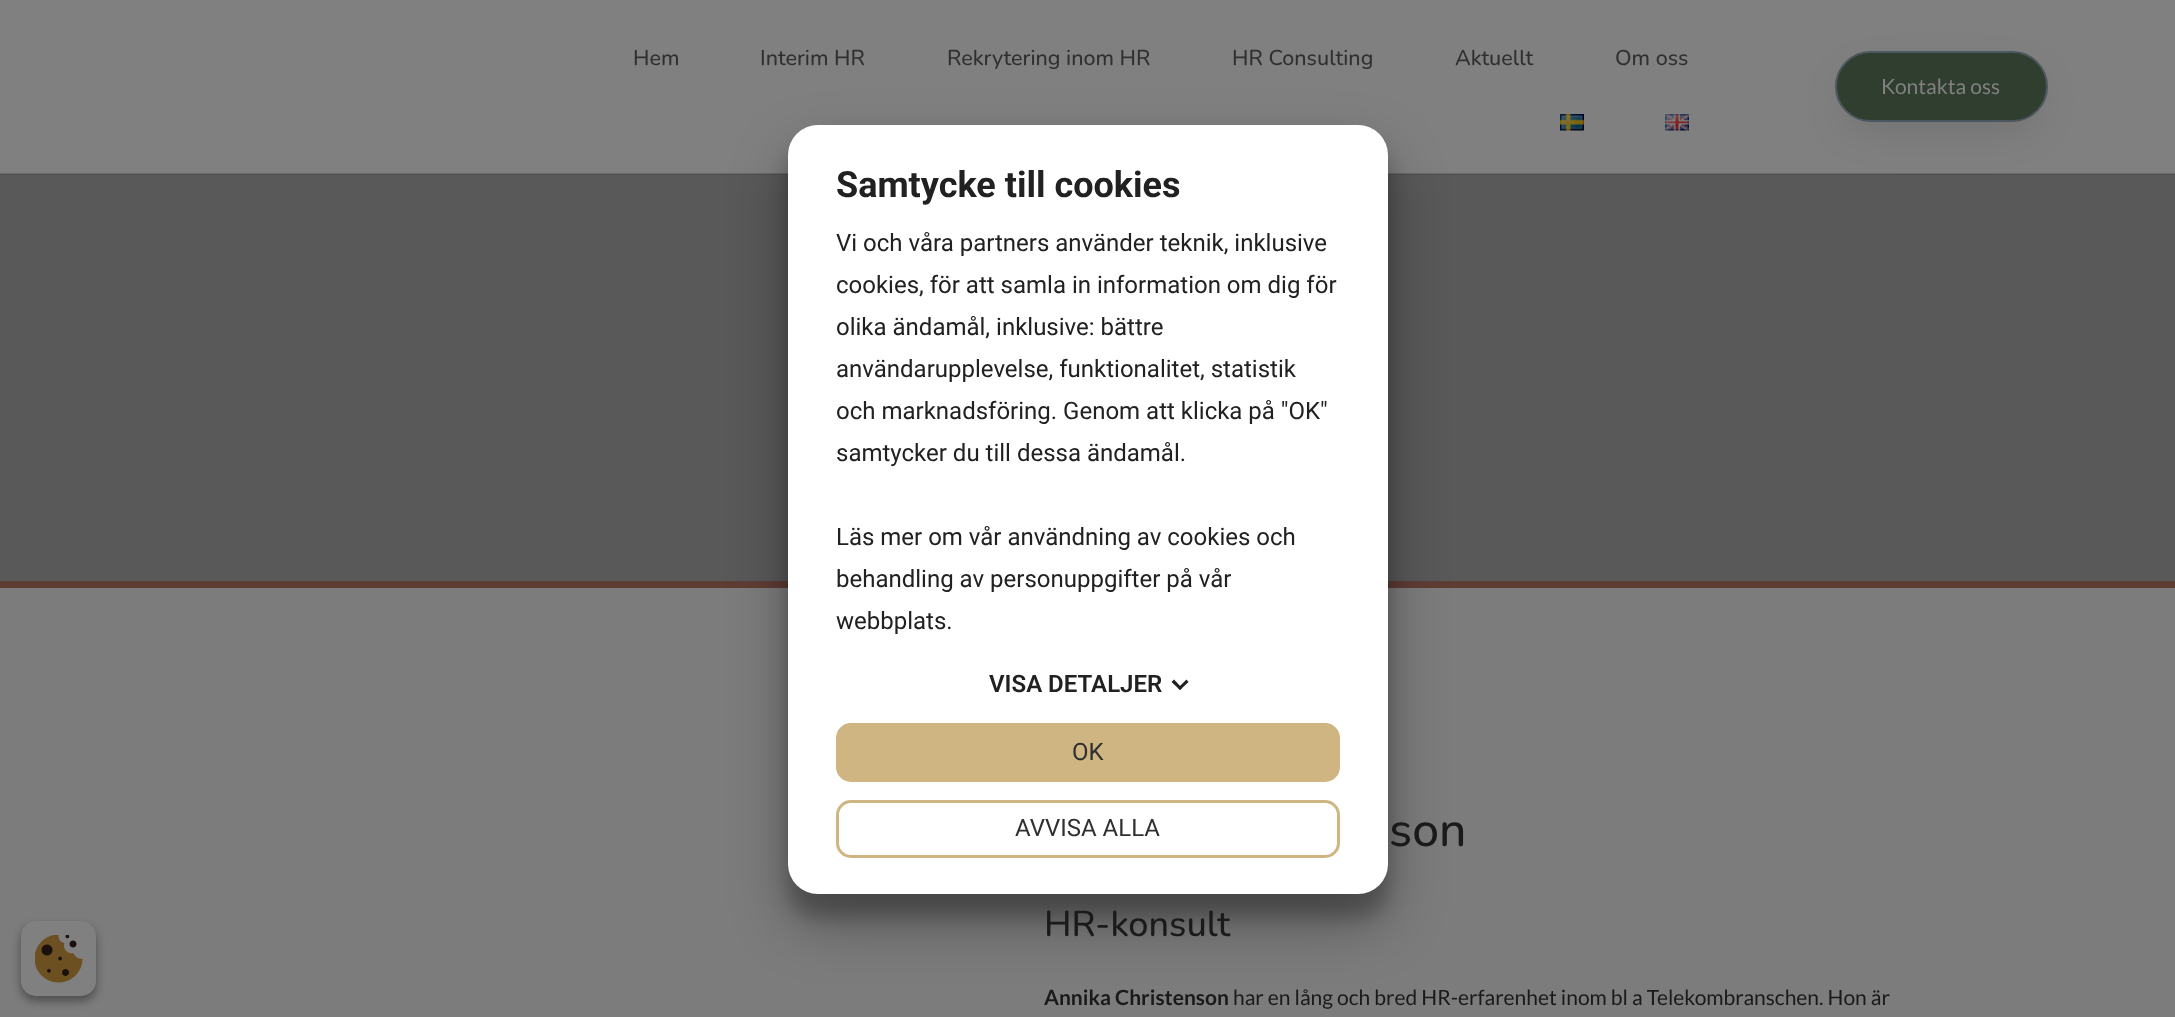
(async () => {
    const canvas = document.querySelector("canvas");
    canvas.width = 2175;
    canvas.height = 1017;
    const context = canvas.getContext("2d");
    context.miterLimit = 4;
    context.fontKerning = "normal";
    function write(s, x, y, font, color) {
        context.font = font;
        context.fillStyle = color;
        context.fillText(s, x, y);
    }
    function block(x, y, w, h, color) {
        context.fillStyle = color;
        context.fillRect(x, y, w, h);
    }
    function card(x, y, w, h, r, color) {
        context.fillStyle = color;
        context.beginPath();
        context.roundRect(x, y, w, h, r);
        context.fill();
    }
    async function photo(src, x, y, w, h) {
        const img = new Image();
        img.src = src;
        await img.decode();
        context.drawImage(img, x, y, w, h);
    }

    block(0, 0, 2175, 1017, "rgb(128, 128, 128)");
    block(0, 175, 2175, 406, "rgb(89, 89, 89)");
    block(0, 173, 2175, 1, "rgb(107, 107, 107)");
    block(0, 174, 2175, 1, "rgb(79, 79, 79)");
    write("Hem", 633, 65, "500 21.5px Nunito", "rgb(48, 48, 48)");
    write("Interim HR", 760, 65, "500 21.5px Nunito", "rgb(48, 48, 48)");
    write("Rekrytering inom HR", 947, 65, "500 21.5px Nunito", "rgb(48, 48, 48)");
    write("HR Consulting", 1232, 65, "500 21.5px Nunito", "rgb(48, 48, 48)");
    write("Aktuellt", 1455, 65, "500 21.5px Nunito", "rgb(48, 48, 48)");
    write("Om oss", 1615, 65, "500 21.5px Nunito", "rgb(48, 48, 48)");
    await photo("media/1.png", 1560, 114, 24, 17);
    await photo("media/2.png", 1665, 114, 24, 17);
    context.fillStyle = "rgba(0, 0, 0, 0.16)";
    context.filter = "blur(22.5px)";
    context.beginPath();
    context.roundRect(1848, 80, 186, 43, 21.5);
    context.fill();
    context.filter = "none";
    context.fillStyle = "rgb(47, 62, 47)";
    context.beginPath();
    context.roundRect(1836, 52, 211, 69, 34.5);
    context.fill();
    context.strokeStyle = "rgb(76, 87, 95)";
    context.lineWidth = 2;
    context.stroke();
    write("Kontakta oss", 1881, 94, "21px Lato", "rgb(128, 128, 128)");
    block(0, 588, 2175, 429, "rgb(124, 124, 124)");
    block(0, 581, 2175, 7, "rgb(94, 61, 53)");
    context.fillStyle = "rgba(0, 0, 0, 0.22)";
    context.filter = "blur(9px)";
    context.beginPath();
    context.roundRect(788, 147, 600, 770, 30);
    context.fill();
    context.filter = "none";
    context.fillStyle = "rgba(0, 0, 0, 0.3)";
    context.filter = "blur(28.5px)";
    context.beginPath();
    context.roundRect(788, 153, 600, 770, 30);
    context.fill();
    context.filter = "none";
    card(788, 125, 600, 769, 30, "rgb(255, 255, 255)");
    write("Samtycke till cookies", 836, 197, "bold 36px Roboto", "rgb(33, 33, 33)");
    write("Vi och våra partners använder teknik, inklusive", 836, 251, "24px Roboto", "rgb(33, 33, 33)");
    write("cookies, för att samla in information om dig för", 836, 293, "24px Roboto", "rgb(33, 33, 33)");
    write("olika ändamål, inklusive: bättre", 836, 335, "24px Roboto", "rgb(33, 33, 33)");
    write("användarupplevelse, funktionalitet, statistik", 836, 377, "24px Roboto", "rgb(33, 33, 33)");
    write("och marknadsföring. Genom att klicka på \"OK\"", 836, 419, "24px Roboto", "rgb(33, 33, 33)");
    write("samtycker du till dessa ändamål.", 836, 461, "24px Roboto", "rgb(33, 33, 33)");
    write("Läs mer om vår användning av cookies och", 836, 545, "24px Roboto", "rgb(33, 33, 33)");
    write("behandling av personuppgifter på vår", 836, 587, "24px Roboto", "rgb(33, 33, 33)");
    write("webbplats.", 836, 629, "24px Roboto", "rgb(33, 33, 33)");
    write("VISA DETALJER", 989, 692, "600 24px Roboto", "rgb(33, 33, 33)");
    context.beginPath();
    context.moveTo(1186.5, 679.5);
    context.lineTo(1188.5, 682);
    context.lineTo(1180, 690);
    context.lineTo(1178, 688);
    context.closePath();
    context.fill();
    context.beginPath();
    context.moveTo(1174, 679.5);
    context.lineTo(1182, 688);
    context.lineTo(1180, 690);
    context.lineTo(1171.5, 682);
    context.closePath();
    context.fill();
    context.fillStyle = "rgb(206, 181, 130)";
    context.beginPath();
    context.roundRect(837.5, 724.5, 501, 56, 13.5);
    context.fill();
    context.strokeStyle = "rgb(206, 181, 130)";
    context.lineWidth = 3;
    context.stroke();
    write("OK", 1072, 760, "24px Roboto", "rgb(48, 48, 48)");
    context.beginPath();
    context.roundRect(837.5, 801.5, 501, 55, 13.5);
    context.stroke();
    write("AVVISA ALLA", 1015, 836, "24px Roboto", "rgb(48, 48, 48)");
    context.fillStyle = "rgba(0, 0, 0, 0.23)";
    context.filter = "blur(4.5px)";
    context.beginPath();
    context.roundRect(21, 926, 75, 75, 15);
    context.fill();
    context.filter = "none";
    context.fillStyle = "rgba(0, 0, 0, 0.16)";
    context.filter = "blur(4.5px)";
    context.beginPath();
    context.roundRect(21, 926, 75, 75, 15);
    context.fill();
    context.filter = "none";
    card(21, 921, 75, 75, 15, "rgb(128, 128, 128)");
    await photo("media/3.png", 35, 935, 48, 48);
    write("son", 1389, 846, "500 48px Nunito", "rgb(26, 26, 26)");
    write("HR-konsult", 1044, 936, "500 36px Nunito", "rgb(26, 26, 26)");
    write("Annika Christenson", 1044, 1005, "bold 21px Lato", "rgb(26, 26, 26)");
    write("har en lång och bred HR-erfarenhet inom bl a Telekombranschen. Hon är", 1233, 1005, "21px Lato", "rgb(26, 26, 26)");
})();
